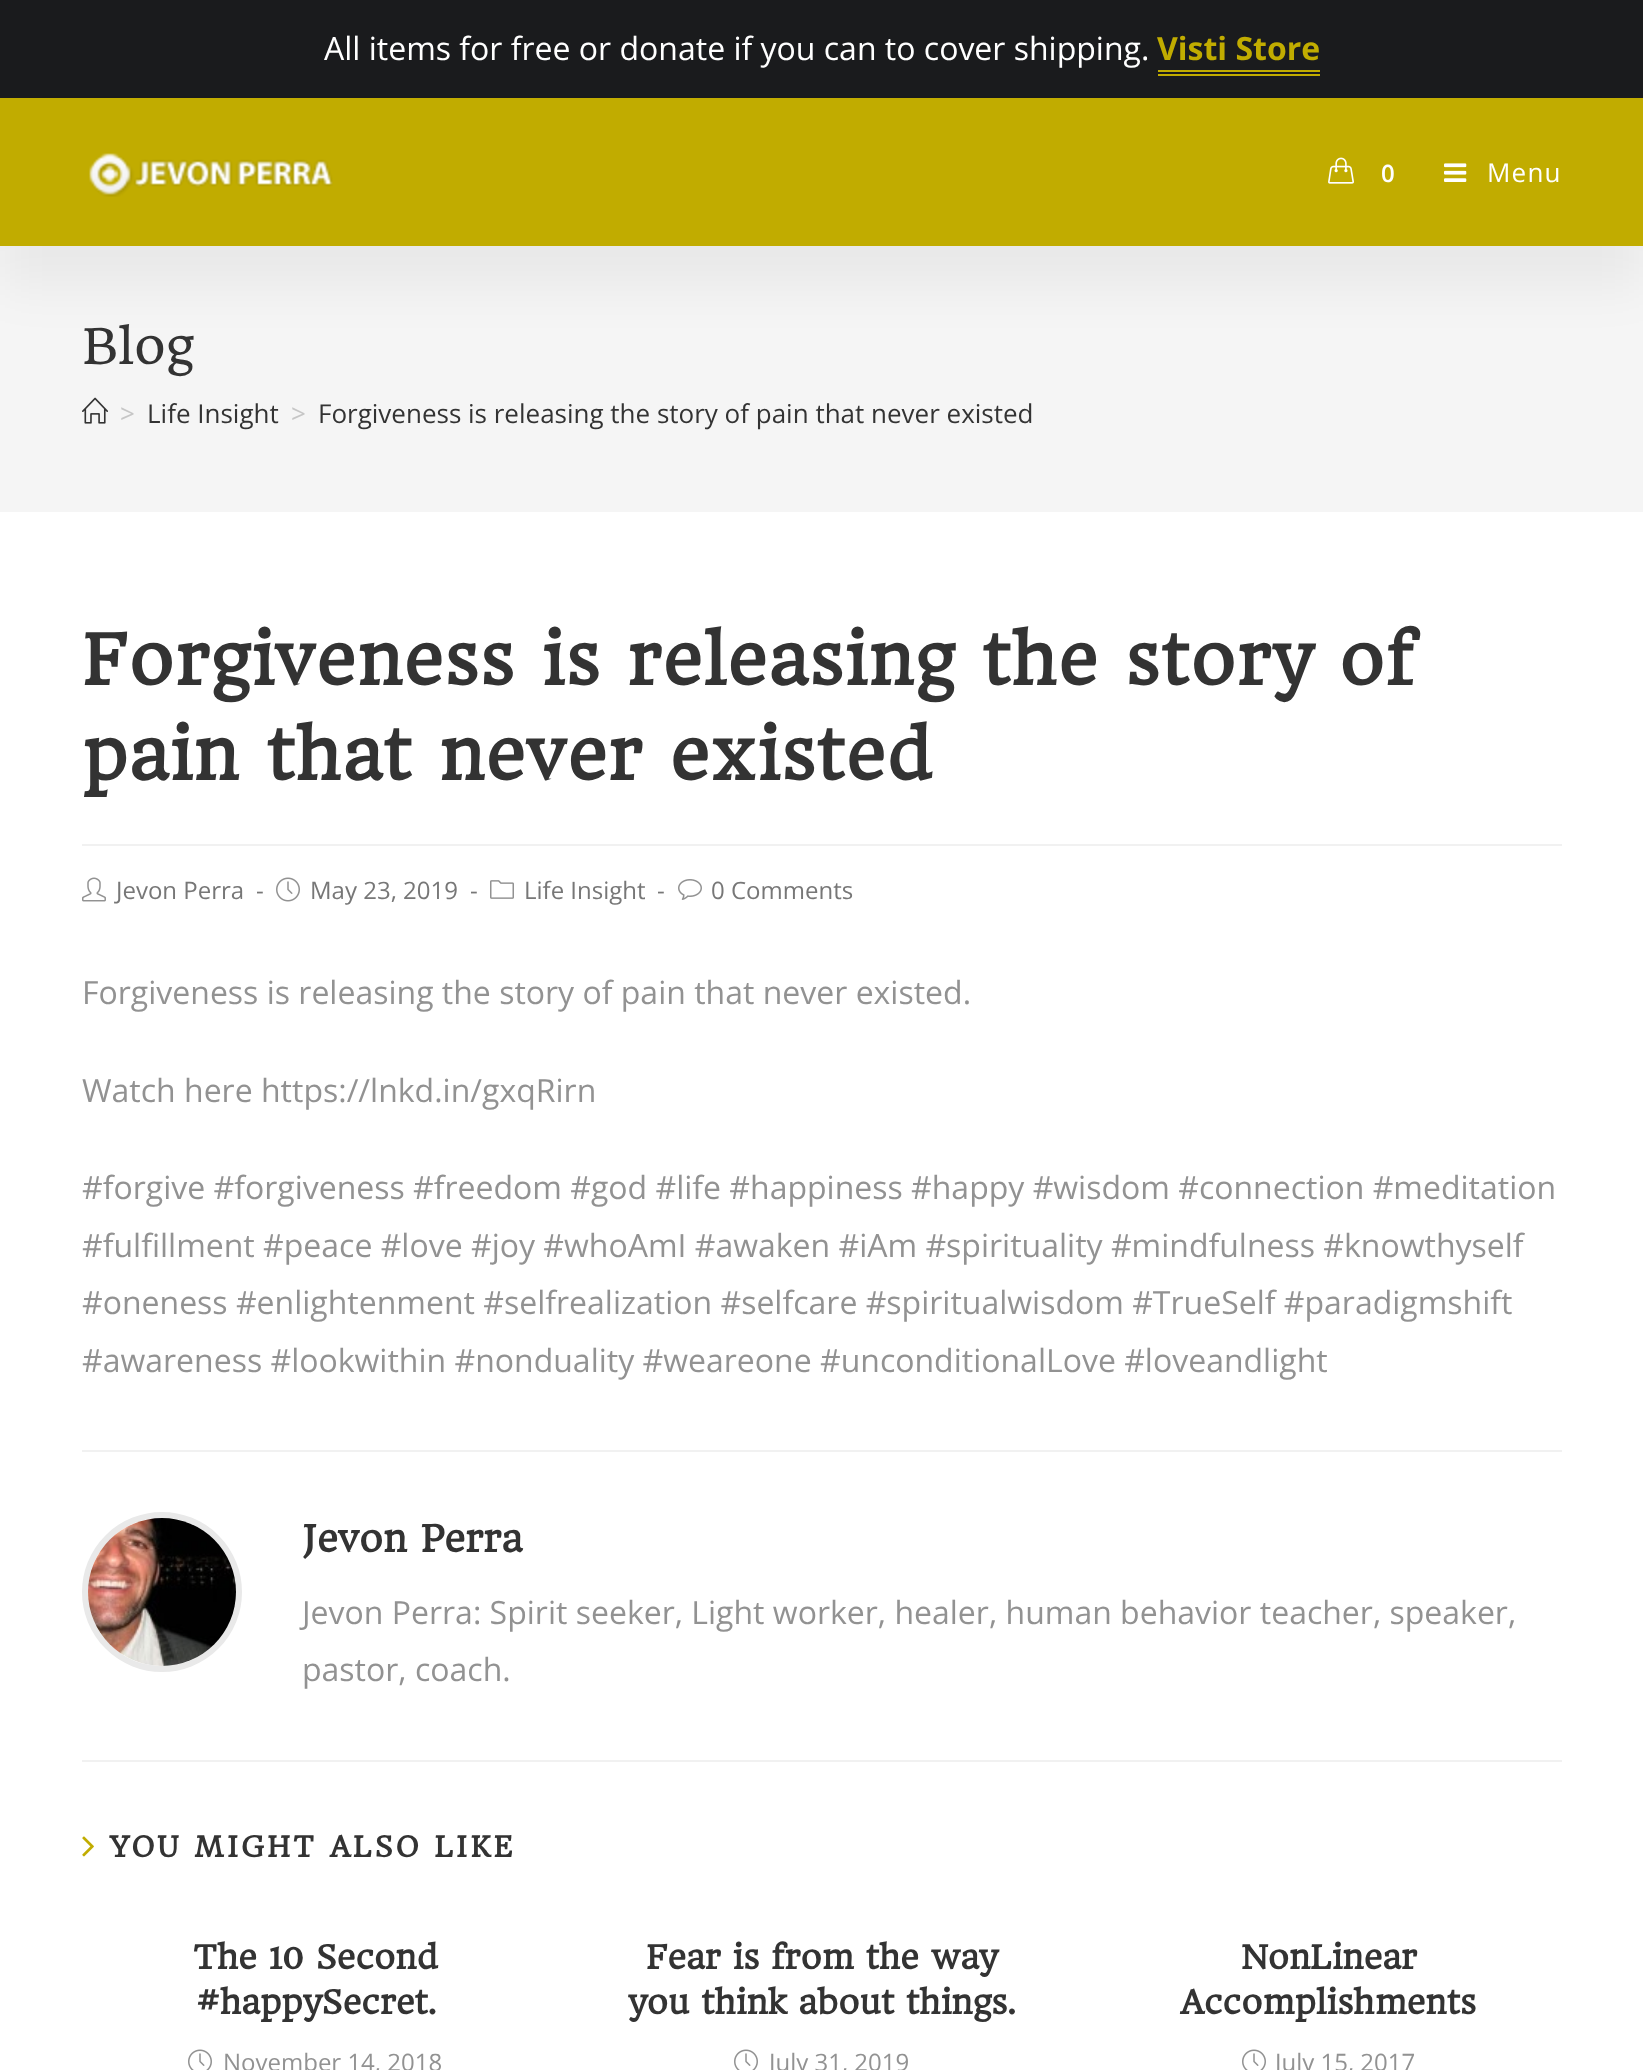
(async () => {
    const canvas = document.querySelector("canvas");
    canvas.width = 1643;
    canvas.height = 2070;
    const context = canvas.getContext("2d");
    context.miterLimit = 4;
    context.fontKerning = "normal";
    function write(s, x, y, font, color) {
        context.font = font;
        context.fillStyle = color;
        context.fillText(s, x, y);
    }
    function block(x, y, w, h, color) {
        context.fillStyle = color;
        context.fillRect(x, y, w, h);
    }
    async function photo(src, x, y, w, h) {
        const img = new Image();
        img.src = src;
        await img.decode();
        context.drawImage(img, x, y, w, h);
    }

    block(0, 0, 1643, 2070, "rgb(255, 255, 255)");
    block(0, 0, 1643, 98, "rgb(26, 27, 29)");
    write("All items for free or donate if you can to cover shipping.", 324, 60, "32px Open Sans", "rgb(255, 255, 255)");
    write("Visti Store", 1157, 60, "bold 32px Open Sans", "rgb(193, 172, 0)");
    block(1158, 70, 162, 2, "rgb(193, 172, 0)");
    block(1158, 74, 162, 2, "rgb(193, 172, 0)");
    block(0, 246, 1643, 266, "rgb(245, 245, 245)");
    context.fillStyle = "rgba(0, 0, 0, 0.05)";
    context.filter = "blur(25px)";
    context.beginPath();
    context.rect(0, 138, 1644, 148);
    context.fill();
    context.filter = "none";
    block(0, 98, 1643, 148, "rgb(193, 172, 0)");
    await photo("media/1.png", 89, 153, 244, 44);
    await photo("media/2.png", 1328, 157, 26, 27);
    context.letterSpacing = "1.2px";
    write("0", 1381, 182, "600 24px Open Sans", "rgb(255, 255, 255)");
    await photo("media/3.png", 1444, 163, 23, 19);
    write("Menu", 1487, 182, "26px Open Sans", "rgb(255, 255, 255)");
    context.letterSpacing = "0px";
    write("Blog", 82, 364, "48px HeadlandOne", "rgb(51, 51, 51)");
    await photo("media/4.png", 82, 397, 26, 27);
    write(">", 120, 423, "26px Open Sans", "rgb(198, 198, 198)");
    write("Life Insight", 147, 423, "26px Open Sans", "rgb(51, 51, 51)");
    write(">", 291, 423, "26px Open Sans", "rgb(198, 198, 198)");
    write("Forgiveness is releasing the story of pain that never existed", 318, 423, "26px Open Sans", "rgb(51, 51, 51)");
    block(82, 844, 1480, 2, "rgb(241, 241, 241)");
    context.letterSpacing = "1.2px";
    write("Forgiveness is releasing the story of", 82, 685, "bold 68px HeadlandOne", "rgb(51, 51, 51)");
    write("pain that never existed", 82, 780, "bold 68px HeadlandOne", "rgb(51, 51, 51)");
    await photo("media/5.png", 82, 877, 24, 25);
    context.letterSpacing = "0px";
    write("Jevon Perra", 116, 899, "24px Open Sans", "rgb(119, 119, 119)");
    write("-", 256, 899, "24px Open Sans", "rgb(119, 119, 119)");
    await photo("media/6.png", 276, 877, 24, 25);
    write("May 23, 2019", 310, 899, "24px Open Sans", "rgb(119, 119, 119)");
    write("-", 470, 899, "24px Open Sans", "rgb(119, 119, 119)");
    await photo("media/7.png", 490, 880, 24, 19);
    write("Life Insight", 524, 899, "24px Open Sans", "rgb(119, 119, 119)");
    write("-", 657, 899, "24px Open Sans", "rgb(119, 119, 119)");
    await photo("media/8.png", 678, 879, 24, 21);
    write("0 Comments", 711, 899, "24px Open Sans", "rgb(119, 119, 119)");
    write("Forgiveness is releasing the story of pain that never existed.", 82, 1004, "32px Open Sans", "rgb(146, 146, 146)");
    write("Watch here https://lnkd.in/gxqRirn", 82, 1102, "32px Open Sans", "rgb(146, 146, 146)");
    write("#forgive #forgiveness #freedom #god #life #happiness #happy #wisdom #connection #meditation", 82, 1199, "32px Open Sans", "rgb(146, 146, 146)");
    write("#fulfillment #peace #love #joy #whoAmI #awaken #iAm #spirituality #mindfulness #knowthyself", 82, 1257, "32px Open Sans", "rgb(146, 146, 146)");
    write("#oneness #enlightenment #selfrealization #selfcare #spiritualwisdom #TrueSelf #paradigmshift", 82, 1314, "32px Open Sans", "rgb(146, 146, 146)");
    write("#awareness #lookwithin #nonduality #weareone #unconditionalLove #loveandlight", 82, 1372, "32px Open Sans", "rgb(146, 146, 146)");
    block(82, 1450, 1480, 2, "rgb(241, 241, 241)");
    context.beginPath();
    context.arc(162, 1592, 77, 0, Math.PI * 2);
    context.strokeStyle = "rgb(233, 233, 233)";
    context.lineWidth = 6;
    context.stroke();
    await photo("media/9.png", 88, 1518, 148, 148);
    write("Jevon Perra", 302, 1552, "bold 36px HeadlandOne", "rgb(51, 51, 51)");
    write("Jevon Perra: Spirit seeker, Light worker, healer, human behavior teacher, speaker,", 302, 1624, "32px Open Sans", "rgb(146, 146, 146)");
    write("pastor, coach.", 302, 1681, "32px Open Sans", "rgb(146, 146, 146)");
    block(82, 1760, 1480, 2, "rgb(241, 241, 241)");
    await photo("media/10.png", 82, 1836, 12, 21);
    context.letterSpacing = "2.6px";
    write("YOU MIGHT ALSO LIKE", 110, 1857, "bold 28px HeadlandOne", "rgb(51, 51, 51)");
    context.letterSpacing = "0px";
    write("The 10 Second", 193, 1969, "bold 32px HeadlandOne", "rgb(51, 51, 51)");
    write("#happySecret.", 196, 2014, "bold 32px HeadlandOne", "rgb(51, 51, 51)");
    await photo("media/11.png", 188, 2049, 24, 21);
    write("November 14, 2018", 223, 2071, "24px Open Sans", "rgb(146, 146, 146)");
    write("Fear is from the way", 646, 1969, "bold 32px HeadlandOne", "rgb(51, 51, 51)");
    write("you think about things.", 628, 2014, "bold 32px HeadlandOne", "rgb(51, 51, 51)");
    await photo("media/11.png", 734, 2049, 24, 21);
    write("July 31, 2019", 769, 2071, "24px Open Sans", "rgb(146, 146, 146)");
    write("NonLinear", 1241, 1969, "bold 32px HeadlandOne", "rgb(51, 51, 51)");
    write("Accomplishments", 1180, 2014, "bold 32px HeadlandOne", "rgb(51, 51, 51)");
    await photo("media/11.png", 1242, 2049, 24, 21);
    write("July 15, 2017", 1275, 2071, "24px Open Sans", "rgb(146, 146, 146)");
})();
